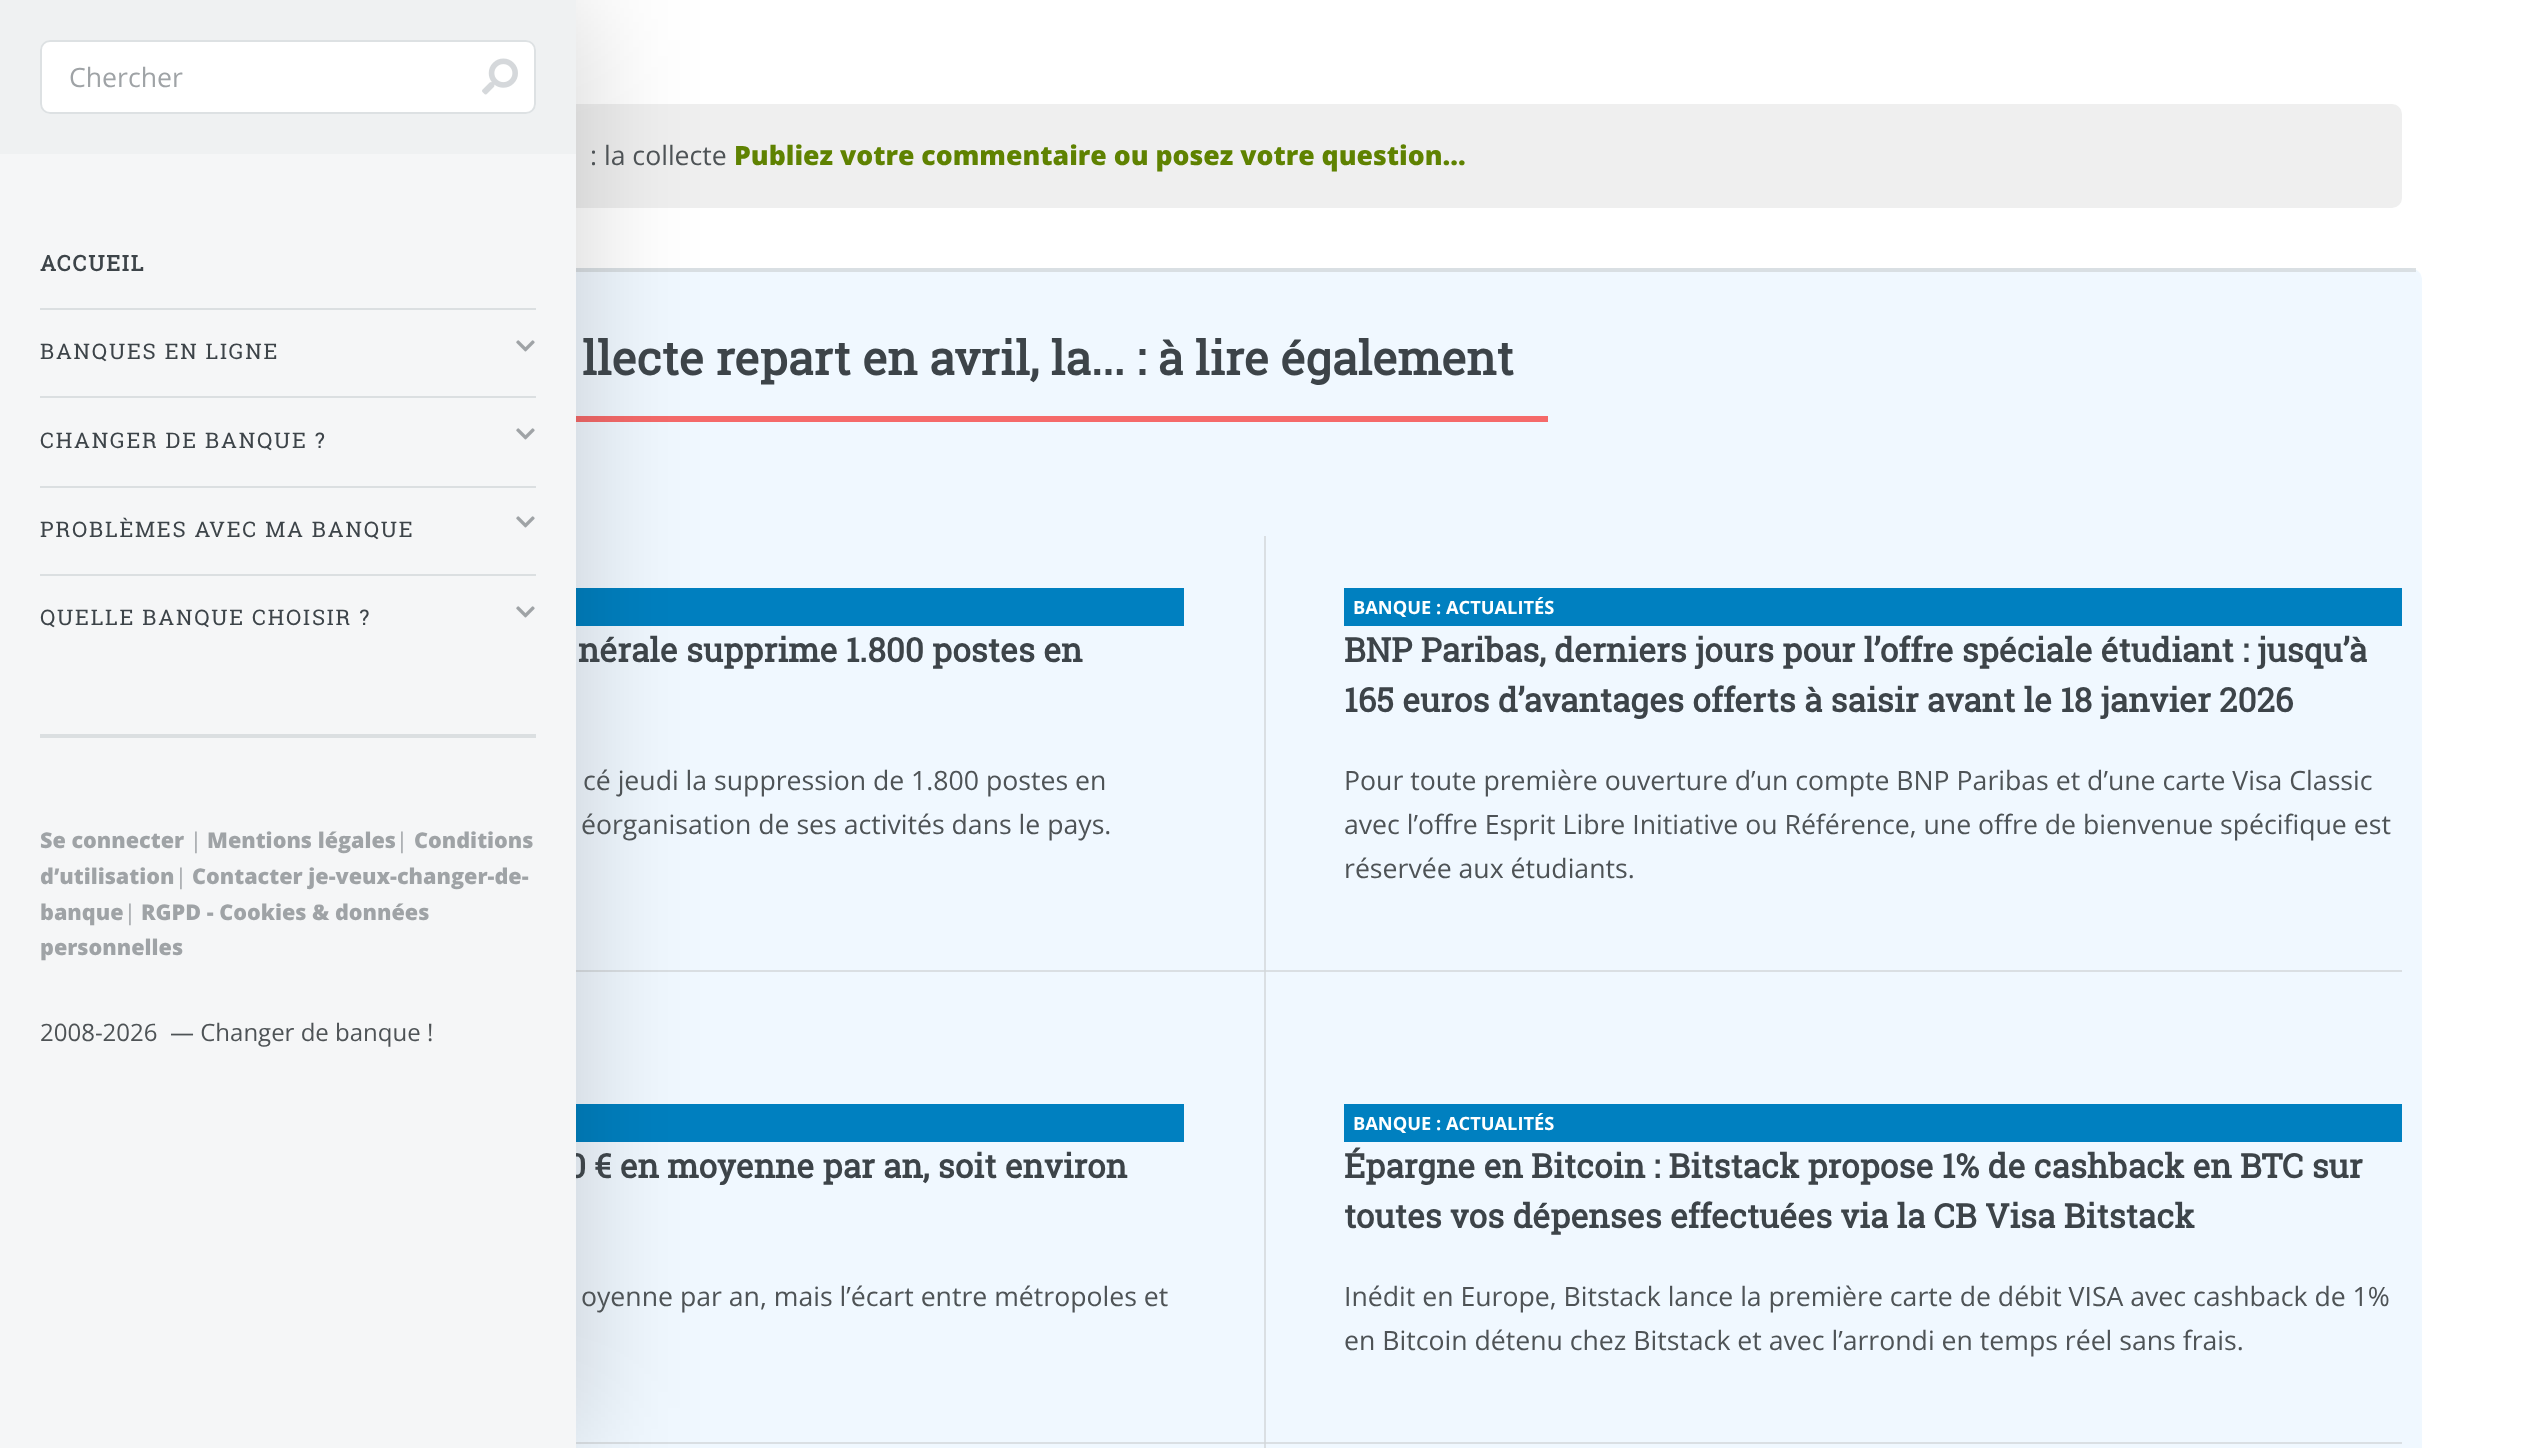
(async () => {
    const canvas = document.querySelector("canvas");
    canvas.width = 2528;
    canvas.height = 1448;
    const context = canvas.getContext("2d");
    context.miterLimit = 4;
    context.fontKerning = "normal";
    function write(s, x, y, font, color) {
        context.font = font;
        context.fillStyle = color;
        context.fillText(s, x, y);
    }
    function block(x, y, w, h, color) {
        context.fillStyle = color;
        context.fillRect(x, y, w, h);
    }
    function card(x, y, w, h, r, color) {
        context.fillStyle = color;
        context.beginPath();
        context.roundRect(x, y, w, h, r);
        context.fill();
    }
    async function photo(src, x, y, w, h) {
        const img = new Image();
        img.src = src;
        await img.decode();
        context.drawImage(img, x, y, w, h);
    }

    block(0, 0, 2528, 1448, "rgb(255, 255, 255)");
    card(126, 104, 2276, 104, 10, "rgb(239, 239, 239)");
    card(106, 268, 2316, 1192, 12, "rgb(240, 248, 255)");
    block(576, 1442, 1826, 2, "rgb(218, 223, 227)");
    block(576, 970, 1826, 2, "rgb(218, 223, 227)");
    block(576, 268, 1840, 4, "rgba(210, 215, 217, 0.75)");
    block(576, 416, 972, 6, "rgb(245, 106, 106)");
    block(576, 588, 608, 38, "rgb(0, 128, 192)");
    block(576, 1104, 608, 38, "rgb(0, 128, 192)");
    context.fillStyle = "rgba(0, 0, 0, 0.18)";
    context.filter = "blur(60px)";
    context.beginPath();
    context.rect(0, 0, 576, 1448);
    context.fill();
    context.filter = "none";
    write("0 € en moyenne par an, soit environ", 567, 1178, "bold 33.3px Roboto Slab", "rgb(61, 68, 73)");
    block(0, 154, 576, 1294, "rgb(245, 246, 247)");
    block(0, 0, 576, 154, "rgb(239, 241, 242)");
    card(40, 40, 496, 74, 10, "rgb(255, 255, 255)");
    context.beginPath();
    context.roundRect(41, 41, 494, 72, 9);
    context.strokeStyle = "rgba(210, 215, 217, 0.75)";
    context.lineWidth = 2;
    context.stroke();
    write("Chercher", 69, 87, "26.65px Open Sans", "rgb(159, 163, 166)");
    await photo("media/1.png", 482, 58, 36, 37);
    block(40, 734, 496, 4, "rgb(219, 223, 225)");
    context.letterSpacing = "1.8px";
    write("ACCUEIL", 40, 271, "bold 21.6px Roboto Slab", "rgb(61, 68, 73)");
    block(40, 308, 496, 2, "rgb(219, 223, 225)");
    write("BANQUES EN LIGNE", 40, 359, "21.6px Roboto Slab", "rgb(61, 68, 73)");
    await photo("media/2.png", 516, 340, 19, 12);
    block(40, 396, 496, 2, "rgb(219, 223, 225)");
    write("CHANGER DE BANQUE ?", 40, 448, "21.6px Roboto Slab", "rgb(61, 68, 73)");
    await photo("media/2.png", 516, 428, 19, 12);
    block(40, 486, 496, 2, "rgb(219, 223, 225)");
    write("PROBLÈMES AVEC MA BANQUE", 40, 537, "21.6px Roboto Slab", "rgb(61, 68, 73)");
    await photo("media/2.png", 516, 516, 19, 12);
    block(40, 574, 496, 2, "rgb(219, 223, 225)");
    write("QUELLE BANQUE CHOISIR ?", 40, 625, "21.6px Roboto Slab", "rgb(61, 68, 73)");
    await photo("media/2.png", 516, 606, 19, 12);
    context.letterSpacing = "0px";
    write("Se connecter", 40, 848, "800 21.6px Open Sans", "rgb(159, 163, 166)");
    write("|", 190, 848, "21.6px Open Sans", "rgb(159, 163, 166)");
    write("Mentions légales", 207, 848, "800 21.6px Open Sans", "rgb(159, 163, 166)");
    write("|", 396, 848, "21.6px Open Sans", "rgb(159, 163, 166)");
    write("Conditions", 414, 848, "800 21.6px Open Sans", "rgb(159, 163, 166)");
    write("d’utilisation", 40, 884, "800 21.6px Open Sans", "rgb(159, 163, 166)");
    write("|", 175, 884, "21.6px Open Sans", "rgb(159, 163, 166)");
    write("Contacter je-veux-changer-de-", 192, 884, "800 21.6px Open Sans", "rgb(159, 163, 166)");
    write("banque", 40, 920, "800 21.6px Open Sans", "rgb(159, 163, 166)");
    write("|", 124, 920, "21.6px Open Sans", "rgb(159, 163, 166)");
    write("RGPD - Cookies & données", 141, 920, "800 21.6px Open Sans", "rgb(159, 163, 166)");
    write("personnelles", 40, 955, "800 21.6px Open Sans", "rgb(159, 163, 166)");
    write("2008-2026  — Changer de banque !", 40, 1041, "24px Open Sans", "rgb(78, 83, 86)");
    write(": la collecte", 590, 165, "26.65px Open Sans", "rgb(78, 83, 86)");
    write("Publiez votre commentaire ou posez votre question...", 734, 165, "800 26.65px Open Sans", "rgb(95, 130, 1)");
    write("llecte repart en avril, la... : à lire également", 582, 375, "bold 46.7px Roboto Slab", "rgb(61, 68, 73)");
    write("nérale supprime 1.800 postes en", 578, 662, "bold 33.3px Roboto Slab", "rgb(61, 68, 73)");
    write("cé jeudi la suppression de 1.800 postes en", 583, 790, "26.65px Open Sans", "rgb(78, 83, 86)");
    write("éorganisation de ses activités dans le pays.", 581, 834, "26.65px Open Sans", "rgb(78, 83, 86)");
    block(1264, 536, 2, 912, "rgb(218, 223, 227)");
    block(1264, 970, 2, 2, "rgb(212, 217, 220)");
    block(1344, 588, 1058, 38, "rgb(0, 128, 192)");
    write("BANQUE : ACTUALITÉS", 1353, 614, "bold 18.25px Open Sans", "rgb(255, 255, 255)");
    write("BNP Paribas, derniers jours pour l’offre spéciale étudiant : jusqu’à", 1344, 662, "bold 33.3px Roboto Slab", "rgb(61, 68, 73)");
    write("165 euros d’avantages offerts à saisir avant le 18 janvier 2026", 1344, 712, "bold 33.3px Roboto Slab", "rgb(61, 68, 73)");
    write("Pour toute première ouverture d’un compte BNP Paribas et d’une carte Visa Classic", 1344, 790, "26.65px Open Sans", "rgb(78, 83, 86)");
    write("avec l’offre Esprit Libre Initiative ou Référence, une offre de bienvenue spécifique est", 1344, 834, "26.65px Open Sans", "rgb(78, 83, 86)");
    write("réservée aux étudiants.", 1344, 878, "26.65px Open Sans", "rgb(78, 83, 86)");
    write("oyenne par an, mais l’écart entre métropoles et", 581, 1306, "26.65px Open Sans", "rgb(78, 83, 86)");
    block(1344, 1104, 1058, 38, "rgb(0, 128, 192)");
    write("BANQUE : ACTUALITÉS", 1353, 1130, "bold 18.25px Open Sans", "rgb(255, 255, 255)");
    write("Épargne en Bitcoin : Bitstack propose 1% de cashback en BTC sur", 1344, 1178, "bold 33.3px Roboto Slab", "rgb(61, 68, 73)");
    write("toutes vos dépenses effectuées via la CB Visa Bitstack", 1344, 1228, "bold 33.3px Roboto Slab", "rgb(61, 68, 73)");
    write("Inédit en Europe, Bitstack lance la première carte de débit VISA avec cashback de 1%", 1344, 1306, "26.65px Open Sans", "rgb(78, 83, 86)");
    write("en Bitcoin détenu chez Bitstack et avec l’arrondi en temps réel sans frais.", 1344, 1350, "26.65px Open Sans", "rgb(78, 83, 86)");
    block(1264, 1442, 2, 2, "rgb(212, 217, 220)");
})();
